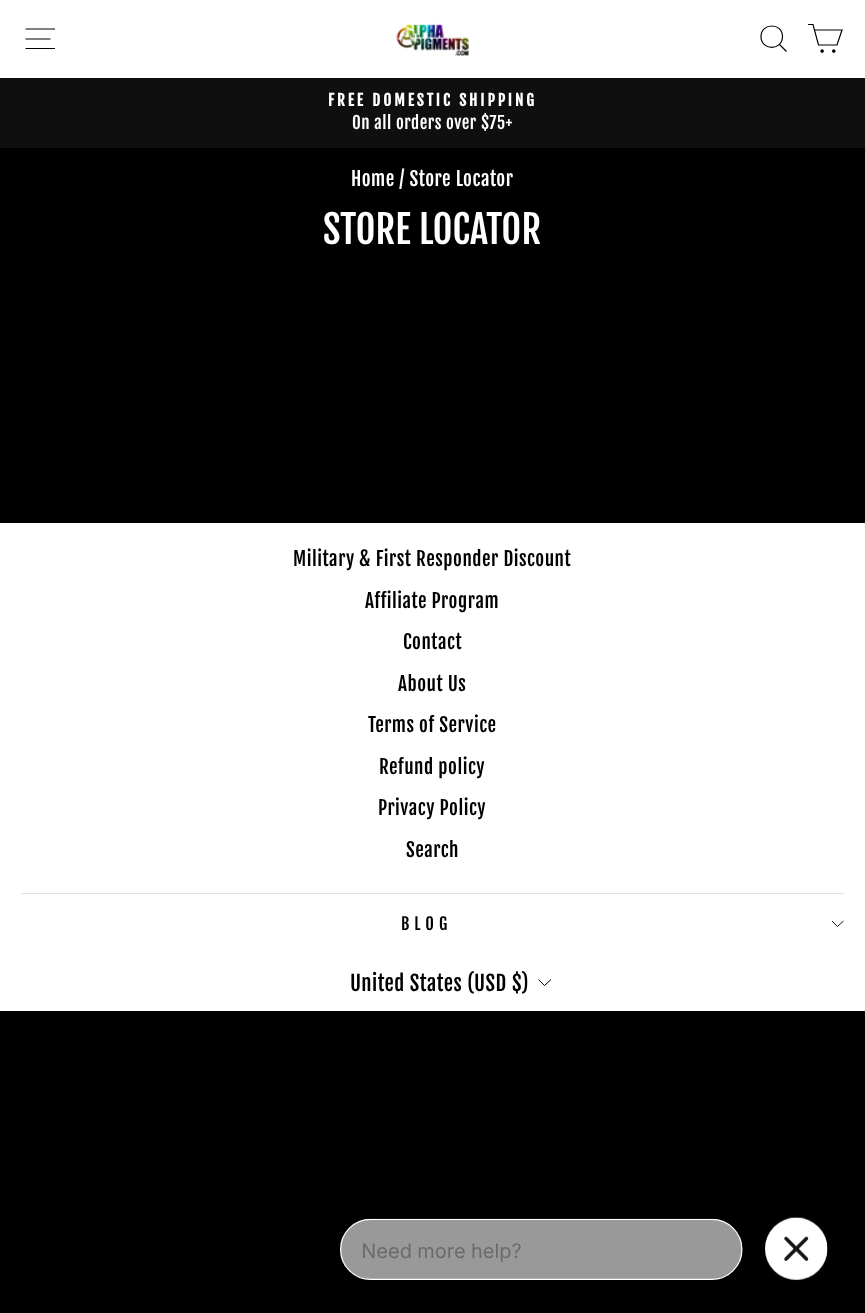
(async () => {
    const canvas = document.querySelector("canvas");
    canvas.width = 865;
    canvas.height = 1313;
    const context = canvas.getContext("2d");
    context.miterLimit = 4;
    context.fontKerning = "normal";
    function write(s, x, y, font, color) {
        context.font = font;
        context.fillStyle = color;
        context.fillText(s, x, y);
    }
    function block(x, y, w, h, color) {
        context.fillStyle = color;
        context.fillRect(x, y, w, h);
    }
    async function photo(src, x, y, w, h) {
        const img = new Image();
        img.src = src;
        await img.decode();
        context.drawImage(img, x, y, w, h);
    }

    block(0, 0, 865, 1313, "rgb(0, 0, 0)");
    block(0, 0, 865, 78, "rgb(255, 255, 255)");
    context.beginPath();
    context.moveTo(25.5, 29);
    context.lineTo(55, 29);
    context.moveTo(25.5, 39);
    context.lineTo(50.5, 39);
    context.moveTo(25.5, 48.5);
    context.lineTo(55, 48.5);
    context.strokeStyle = "rgb(0, 0, 0)";
    context.lineWidth = 1.2;
    context.stroke();
    await photo("media/1.png", 396, 23, 73, 33);
    context.beginPath();
    context.moveTo(782.5, 36.5);
    context.bezierCurveTo(782.5, 51, 761, 51, 761, 36.5);
    context.bezierCurveTo(761, 22.5, 782.5, 22.5, 782.5, 36.5);
    context.closePath();
    context.moveTo(786.5, 51.5);
    context.lineTo(779.5, 44.5);
    context.stroke();
    context.beginPath();
    context.moveTo(814.5, 30);
    context.lineTo(842, 30);
    context.lineTo(837, 45);
    context.lineTo(818.5, 45);
    context.lineTo(813, 24.5);
    context.lineTo(808, 24.5);
    context.stroke();
    context.fillStyle = "rgb(0, 0, 0)";
    context.beginPath();
    context.arc(822.1, 51.1, 1.2, 0, Math.PI * 2);
    context.fill();
    context.stroke();
    context.beginPath();
    context.arc(833.8, 51.1, 1.2, 0, Math.PI * 2);
    context.fill();
    context.stroke();
    block(0, 78, 865, 70, "rgb(15, 15, 15)");
    context.letterSpacing = "3px";
    write("FREE DOMESTIC SHIPPING", 328, 106, "bold 15.25px Fjalla One", "rgb(255, 255, 255)");
    context.letterSpacing = "0.5px";
    write("On all orders over $75+", 352, 129, "16.9px Fjalla One", "rgb(255, 255, 255)");
    write("Home / Store Locator", 351, 186, "19.1px Fjalla One", "rgb(255, 255, 255)");
    context.letterSpacing = "0px";
    write("STORE LOCATOR", 323, 244, "38.25px Fjalla One", "rgb(255, 255, 255)");
    block(0, 523, 865, 488, "rgb(255, 255, 255)");
    context.letterSpacing = "0.5px";
    write("Military & First Responder Discount", 293, 566, "19.1px Fjalla One", "rgb(0, 0, 0)");
    write("Affiliate Program", 365, 608, "19.1px Fjalla One", "rgb(0, 0, 0)");
    write("Contact", 403, 649, "19.1px Fjalla One", "rgb(0, 0, 0)");
    write("About Us", 398, 691, "19.1px Fjalla One", "rgb(0, 0, 0)");
    write("Terms of Service", 368, 732, "19.1px Fjalla One", "rgb(0, 0, 0)");
    write("Refund policy", 379, 774, "19.1px Fjalla One", "rgb(0, 0, 0)");
    write("Privacy Policy", 378, 815, "19.1px Fjalla One", "rgb(0, 0, 0)");
    write("Search", 406, 857, "19.1px Fjalla One", "rgb(0, 0, 0)");
    block(21, 893, 823, 1, "rgb(224, 224, 224)");
    context.letterSpacing = "5px";
    write("BLOG", 401, 930, "16.5px Fjalla One", "rgb(0, 0, 0)");
    context.beginPath();
    context.moveTo(832, 921);
    context.lineTo(837.5, 926.5);
    context.lineTo(843.5, 921);
    context.lineWidth = 0.9;
    context.stroke();
    context.letterSpacing = "0.5px";
    write("United States (USD $)", 350, 991, "20.75px Fjalla One", "rgb(0, 0, 0)");
    context.beginPath();
    context.moveTo(538.5, 979.5);
    context.lineTo(544.5, 985.5);
    context.lineTo(551, 979.5);
    context.lineWidth = 1;
    context.stroke();
    await photo("media/2.png", 340, 1217, 488, 64);
})();
